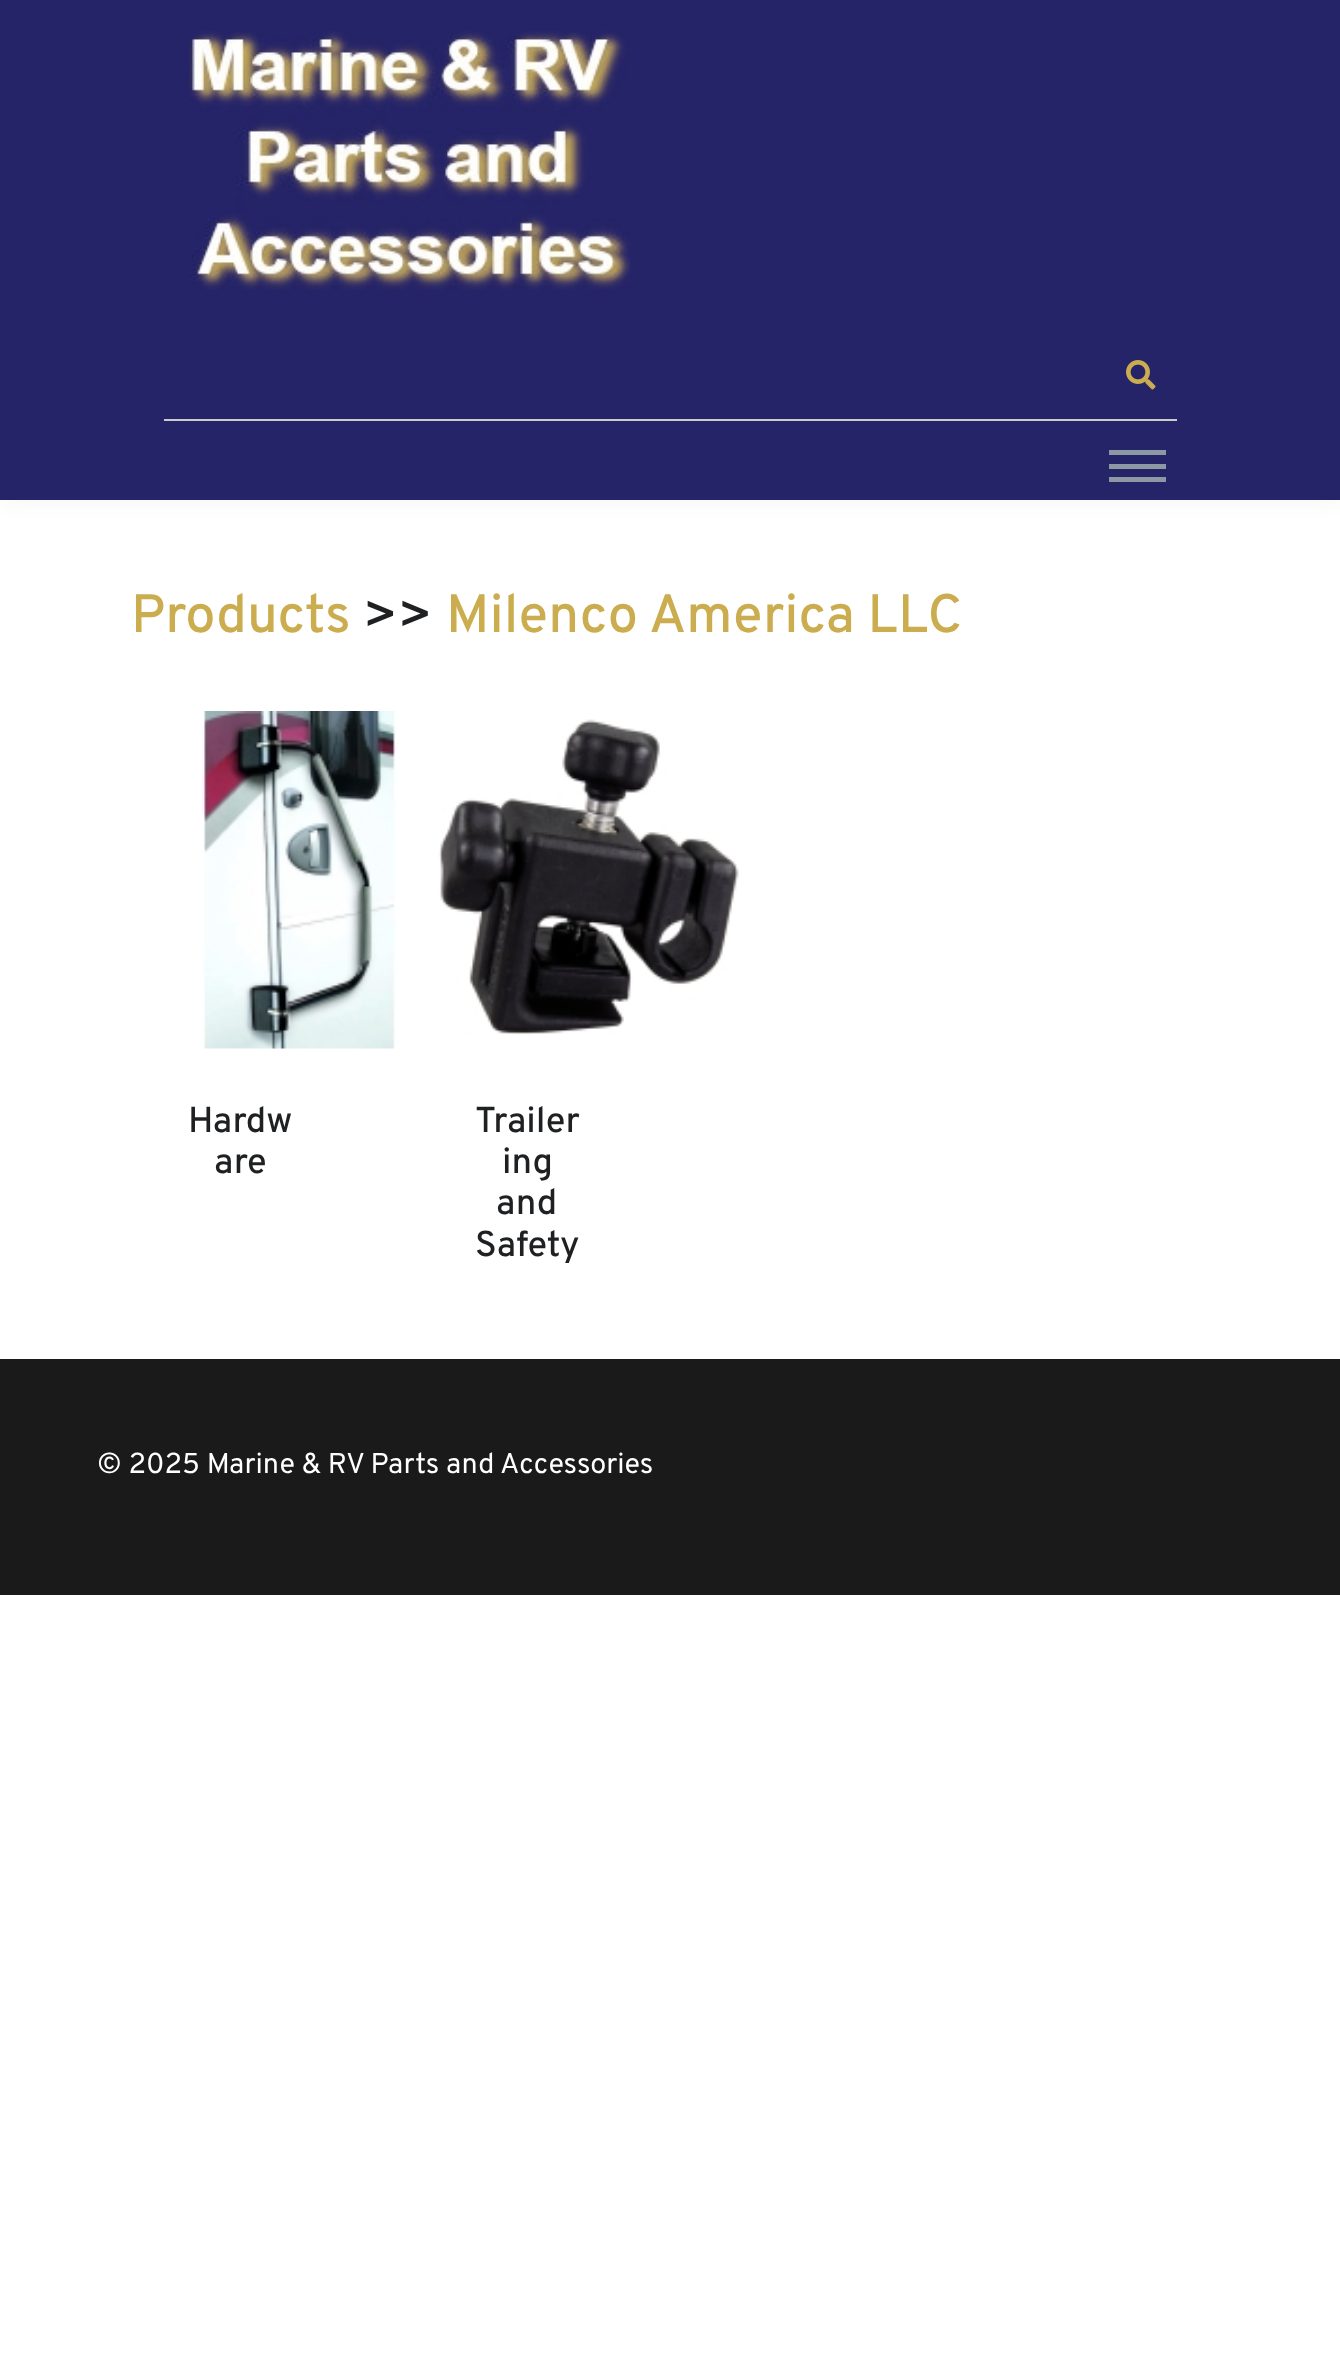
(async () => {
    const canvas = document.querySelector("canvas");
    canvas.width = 1340;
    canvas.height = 2364;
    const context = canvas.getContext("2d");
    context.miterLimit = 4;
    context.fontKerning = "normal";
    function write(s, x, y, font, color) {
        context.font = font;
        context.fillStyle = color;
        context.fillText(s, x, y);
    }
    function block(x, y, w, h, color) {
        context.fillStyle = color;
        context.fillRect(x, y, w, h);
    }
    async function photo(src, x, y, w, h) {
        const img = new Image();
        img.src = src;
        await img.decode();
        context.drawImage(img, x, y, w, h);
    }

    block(0, 0, 1340, 2364, "rgb(255, 255, 255)");
    context.fillStyle = "rgba(151, 164, 175, 0.1)";
    context.filter = "blur(11px)";
    context.beginPath();
    context.rect(0, 2, 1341, 500);
    context.fill();
    context.filter = "none";
    block(0, 0, 1340, 500, "rgb(37, 36, 104)");
    await photo("media/1.png", 189, 31, 442, 259);
    block(164, 419, 1013, 2, "rgb(204, 204, 204)");
    await photo("media/2.png", 1126, 360, 30, 30);
    block(1109, 450, 57, 5, "rgb(140, 152, 164)");
    block(1109, 464, 57, 5, "rgb(140, 152, 164)");
    block(1109, 477, 57, 5, "rgb(140, 152, 164)");
    write("Products", 131, 632, "500 54px Overpass", "rgb(203, 173, 79)");
    write(">>", 363, 632, "500 54px Overpass", "rgb(30, 32, 34)");
    write("Milenco America LLC", 446, 632, "500 54px Overpass", "rgb(203, 173, 79)");
    await photo("media/3.png", 201, 711, 196, 338);
    write("Hardw", 188, 1132, "500 36px Overpass", "rgb(30, 32, 34)");
    write("are", 214, 1173, "500 36px Overpass", "rgb(30, 32, 34)");
    await photo("media/4.png", 438, 719, 301, 316);
    write("Trailer", 475, 1132, "500 36px Overpass", "rgb(30, 32, 34)");
    write("ing", 502, 1173, "500 36px Overpass", "rgb(30, 32, 34)");
    write("and", 496, 1214, "500 36px Overpass", "rgb(30, 32, 34)");
    write("Safety", 475, 1256, "500 36px Overpass", "rgb(30, 32, 34)");
    block(0, 1359, 1340, 236, "rgb(26, 26, 26)");
    write("© 2025 Marine & RV Parts and Accessories", 97, 1473, "28.75px Overpass", "rgb(255, 255, 255)");
})();
